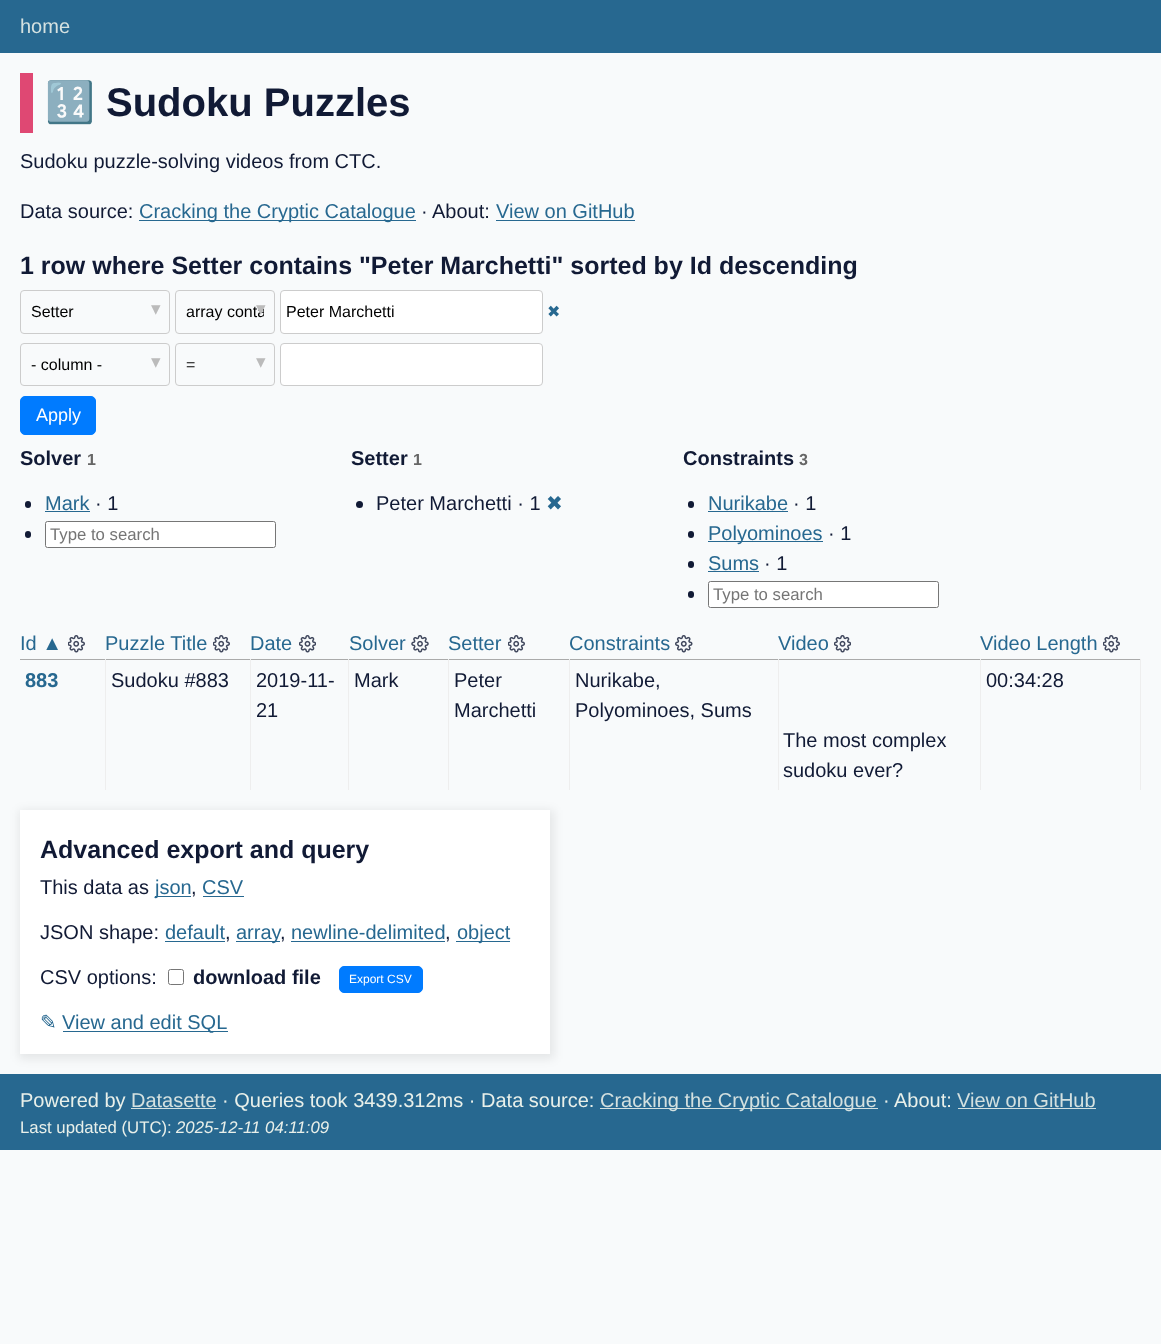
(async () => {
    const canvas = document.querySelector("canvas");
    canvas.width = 1161;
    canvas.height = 1344;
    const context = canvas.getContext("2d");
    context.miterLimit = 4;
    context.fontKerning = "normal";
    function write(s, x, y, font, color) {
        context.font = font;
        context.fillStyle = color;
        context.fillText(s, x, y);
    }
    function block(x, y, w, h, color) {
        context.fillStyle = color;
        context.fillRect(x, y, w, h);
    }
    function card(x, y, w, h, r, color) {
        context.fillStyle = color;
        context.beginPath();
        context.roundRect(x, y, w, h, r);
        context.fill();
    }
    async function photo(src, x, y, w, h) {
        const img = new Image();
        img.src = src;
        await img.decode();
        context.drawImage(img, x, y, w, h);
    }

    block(0, 0, 1161, 1344, "rgb(248, 250, 251)");
    block(0, 0, 1161, 53, "rgb(39, 104, 144)");
    write("home", 20, 33, "20px Liberation Sans", "rgb(212, 225, 224)");
    block(20, 73, 13, 60, "rgb(223, 72, 115)");
    write("🔢", 45, 116, "bold 40px Noto Color Emoji", "rgb(17, 26, 53)");
    write("Sudoku Puzzles", 106, 116, "bold 40px Liberation Sans", "rgb(17, 26, 53)");
    write("Sudoku puzzle-solving videos from CTC.", 20, 168, "20px Liberation Sans", "rgb(17, 26, 53)");
    write("Data source:", 20, 218, "20px Liberation Sans", "rgb(17, 26, 53)");
    block(139, 220, 277, 1, "rgb(39, 104, 144)");
    write("Cracking the Cryptic Catalogue", 139, 218, "20px Liberation Sans", "rgb(39, 104, 144)");
    write("·", 421, 218, "20px Liberation Sans", "rgb(17, 26, 53)");
    write("About:", 432, 218, "20px Liberation Sans", "rgb(17, 26, 53)");
    write("View on GitHub", 496, 218, "20px Liberation Sans", "rgb(39, 104, 144)");
    block(496, 220, 139, 1, "rgb(39, 104, 144)");
    write("1 row where Setter contains \"Peter Marchetti\" sorted by Id descending", 20, 274, "bold 25px Liberation Sans", "rgb(17, 26, 53)");
    context.beginPath();
    context.roundRect(20.5, 290.5, 149, 43, 3.5);
    context.strokeStyle = "rgb(204, 204, 204)";
    context.stroke();
    write("Setter", 31, 317, "16px Liberation Sans", "rgb(0, 0, 0)");
    write("▾", 151, 315, "19px DejaVu Sans", "rgb(187, 187, 187)");
    context.beginPath();
    context.roundRect(175.5, 290.5, 99, 43, 3.5);
    context.stroke();
    context.save();
    context.beginPath();
    context.rect(186, 303, 78, 18);
    context.clip();
    write("array conta", 186, 317, "16px Liberation Sans", "rgb(0, 0, 0)");
    context.restore();
    write("▾", 256, 315, "19px DejaVu Sans", "rgb(187, 187, 187)");
    context.fillStyle = "rgb(255, 255, 255)";
    context.beginPath();
    context.roundRect(280.5, 290.5, 262, 43, 3.5);
    context.fill();
    context.stroke();
    write("Peter Marchetti", 286, 317, "16px Liberation Sans", "rgb(0, 0, 0)");
    write("✖", 547, 317, "16px DejaVu Sans", "rgb(39, 104, 144)");
    context.beginPath();
    context.roundRect(20.5, 343.5, 149, 42, 3.5);
    context.stroke();
    write("- column -", 31, 370, "16px Liberation Sans", "rgb(0, 0, 0)");
    write("▾", 151, 368, "19px DejaVu Sans", "rgb(187, 187, 187)");
    context.beginPath();
    context.roundRect(175.5, 343.5, 99, 42, 3.5);
    context.stroke();
    write("=", 186, 370, "16px Liberation Sans", "rgb(0, 0, 0)");
    write("▾", 256, 368, "19px DejaVu Sans", "rgb(187, 187, 187)");
    context.fillStyle = "rgb(255, 255, 255)";
    context.beginPath();
    context.roundRect(280.5, 343.5, 262, 42, 3.5);
    context.fill();
    context.stroke();
    context.fillStyle = "rgb(0, 123, 255)";
    context.beginPath();
    context.roundRect(20.5, 396.5, 75, 38, 4.5);
    context.fill();
    context.strokeStyle = "rgb(0, 123, 255)";
    context.stroke();
    write("Apply", 36, 421, "18px Liberation Sans", "rgb(255, 255, 255)");
    write("Solver", 20, 465, "bold 20px Liberation Sans", "rgb(17, 26, 53)");
    write("1", 87, 465, "bold 16px Liberation Sans", "rgb(102, 102, 102)");
    card(25, 501, 6, 7, 3, "rgb(17, 26, 53)");
    write("Mark", 45, 510, "20px Liberation Sans", "rgb(39, 104, 144)");
    block(45, 511, 45, 1, "rgb(39, 104, 144)");
    write("· 1", 95, 510, "20px Liberation Sans", "rgb(17, 26, 53)");
    card(25, 531, 6, 7, 3, "rgb(17, 26, 53)");
    context.fillStyle = "rgb(255, 255, 255)";
    context.beginPath();
    context.roundRect(45.5, 521.5, 230, 26, 2);
    context.fill();
    context.strokeStyle = "rgb(118, 118, 118)";
    context.stroke();
    write("Type to search", 50, 540, "16.75px Liberation Sans", "rgb(117, 117, 117)");
    write("Setter", 351, 465, "bold 20px Liberation Sans", "rgb(17, 26, 53)");
    write("1", 413, 465, "bold 16px Liberation Sans", "rgb(102, 102, 102)");
    context.fillStyle = "rgb(17, 26, 53)";
    context.beginPath();
    context.arc(359.5, 504.5, 3.5, 0, Math.PI * 2);
    context.fill();
    write("Peter Marchetti · 1", 376, 510, "20px Liberation Sans", "rgb(17, 26, 53)");
    write("✖", 546, 510, "20px DejaVu Sans", "rgb(39, 104, 144)");
    write("Constraints", 683, 465, "bold 20px Liberation Sans", "rgb(17, 26, 53)");
    write("3", 799, 465, "bold 16px Liberation Sans", "rgb(102, 102, 102)");
    card(688, 501, 6, 7, 3, "rgb(17, 26, 53)");
    write("Nurikabe", 708, 510, "20px Liberation Sans", "rgb(39, 104, 144)");
    block(708, 511, 80, 1, "rgb(39, 104, 144)");
    write("· 1", 793, 510, "20px Liberation Sans", "rgb(17, 26, 53)");
    card(688, 531, 6, 7, 3, "rgb(17, 26, 53)");
    block(708, 541, 115, 1, "rgb(39, 104, 144)");
    write("Polyominoes", 708, 540, "20px Liberation Sans", "rgb(39, 104, 144)");
    write("· 1", 828, 540, "20px Liberation Sans", "rgb(17, 26, 53)");
    card(688, 561, 6, 7, 3, "rgb(17, 26, 53)");
    write("Sums", 708, 570, "20px Liberation Sans", "rgb(39, 104, 144)");
    block(708, 571, 51, 1, "rgb(39, 104, 144)");
    write("· 1", 764, 570, "20px Liberation Sans", "rgb(17, 26, 53)");
    card(688, 591, 6, 7, 3, "rgb(17, 26, 53)");
    context.fillStyle = "rgb(255, 255, 255)";
    context.beginPath();
    context.roundRect(708.5, 581.5, 230, 26, 2);
    context.fill();
    context.stroke();
    write("Type to search", 713, 600, "16.75px Liberation Sans", "rgb(117, 117, 117)");
    write("Id ▲", 20, 650, "20px Liberation Sans", "rgb(39, 104, 144)");
    await photo("media/1.png", 68, 635, 17, 18);
    write("Puzzle Title", 105, 650, "20px Liberation Sans", "rgb(39, 104, 144)");
    await photo("media/1.png", 213, 635, 17, 18);
    write("Date", 250, 650, "20px Liberation Sans", "rgb(39, 104, 144)");
    await photo("media/2.png", 299, 635, 17, 18);
    write("Solver", 349, 650, "20px Liberation Sans", "rgb(39, 104, 144)");
    await photo("media/3.png", 411, 635, 18, 18);
    write("Setter", 448, 650, "20px Liberation Sans", "rgb(39, 104, 144)");
    await photo("media/1.png", 508, 635, 17, 18);
    write("Constraints", 569, 650, "20px Liberation Sans", "rgb(39, 104, 144)");
    await photo("media/4.png", 675, 635, 18, 18);
    write("Video", 778, 650, "20px Liberation Sans", "rgb(39, 104, 144)");
    await photo("media/2.png", 834, 635, 17, 18);
    write("Video Length", 980, 650, "20px Liberation Sans", "rgb(39, 104, 144)");
    await photo("media/1.png", 1103, 635, 17, 18);
    block(20, 659, 1121, 1, "rgb(170, 170, 170)");
    block(105, 659, 1, 131, "rgb(238, 238, 238)");
    write("883", 25, 687, "bold 20px Liberation Sans", "rgb(39, 104, 144)");
    block(250, 659, 1, 131, "rgb(238, 238, 238)");
    write("Sudoku #883", 111, 687, "20px Liberation Sans", "rgb(17, 26, 53)");
    block(348, 659, 1, 131, "rgb(238, 238, 238)");
    write("2019-11-", 256, 687, "20px Liberation Sans", "rgb(17, 26, 53)");
    write("21", 256, 717, "20px Liberation Sans", "rgb(17, 26, 53)");
    block(448, 659, 1, 131, "rgb(238, 238, 238)");
    write("Mark", 354, 687, "20px Liberation Sans", "rgb(17, 26, 53)");
    block(569, 659, 1, 131, "rgb(238, 238, 238)");
    write("Peter", 454, 687, "20px Liberation Sans", "rgb(17, 26, 53)");
    write("Marchetti", 454, 717, "20px Liberation Sans", "rgb(17, 26, 53)");
    block(778, 659, 1, 131, "rgb(238, 238, 238)");
    write("Nurikabe,", 575, 687, "20px Liberation Sans", "rgb(17, 26, 53)");
    write("Polyominoes, Sums", 575, 717, "20px Liberation Sans", "rgb(17, 26, 53)");
    block(1140, 659, 1, 131, "rgb(238, 238, 238)");
    write("00:34:28", 986, 687, "20px Liberation Sans", "rgb(17, 26, 53)");
    block(980, 659, 1, 131, "rgb(238, 238, 238)");
    write("The most complex", 783, 747, "20px Liberation Sans", "rgb(17, 26, 53)");
    write("sudoku ever?", 783, 777, "20px Liberation Sans", "rgb(17, 26, 53)");
    context.fillStyle = "rgba(0, 0, 0, 0.08)";
    context.filter = "blur(5px)";
    context.beginPath();
    context.rect(19, 810, 535, 249);
    context.fill();
    context.filter = "none";
    block(20, 810, 530, 244, "rgb(255, 255, 255)");
    write("Advanced export and query", 40, 858, "bold 25px Liberation Sans", "rgb(17, 26, 53)");
    write("This data as", 40, 894, "20px Liberation Sans", "rgb(17, 26, 53)");
    block(155, 896, 36, 1, "rgb(39, 104, 144)");
    write("json", 155, 894, "20px Liberation Sans", "rgb(39, 104, 144)");
    write(",", 191, 894, "20px Liberation Sans", "rgb(17, 26, 53)");
    write("CSV", 202, 894, "20px Liberation Sans", "rgb(39, 104, 144)");
    block(203, 896, 41, 1, "rgb(39, 104, 144)");
    write("JSON shape:", 40, 939, "20px Liberation Sans", "rgb(17, 26, 53)");
    write("default", 165, 939, "20px Liberation Sans", "rgb(39, 104, 144)");
    block(165, 941, 60, 1, "rgb(39, 104, 144)");
    write(",", 225, 939, "20px Liberation Sans", "rgb(17, 26, 53)");
    block(236, 941, 44, 1, "rgb(39, 104, 144)");
    write("array", 236, 939, "20px Liberation Sans", "rgb(39, 104, 144)");
    write(",", 280, 939, "20px Liberation Sans", "rgb(17, 26, 53)");
    write("newline-delimited", 291, 939, "20px Liberation Sans", "rgb(39, 104, 144)");
    block(291, 941, 154, 1, "rgb(39, 104, 144)");
    write(",", 445, 939, "20px Liberation Sans", "rgb(17, 26, 53)");
    block(456, 941, 54, 1, "rgb(39, 104, 144)");
    write("object", 457, 939, "20px Liberation Sans", "rgb(39, 104, 144)");
    write("CSV options:", 40, 984, "20px Liberation Sans", "rgb(17, 26, 53)");
    context.beginPath();
    context.roundRect(168.5, 969.5, 15, 15, 2);
    context.stroke();
    write("download file", 193, 984, "bold 20px Liberation Sans", "rgb(17, 26, 53)");
    context.fillStyle = "rgb(0, 123, 255)";
    context.beginPath();
    context.roundRect(339.5, 966.5, 83, 26, 4.5);
    context.fill();
    context.strokeStyle = "rgb(0, 123, 255)";
    context.stroke();
    write("Export CSV", 349, 983, "12px Liberation Sans", "rgb(255, 255, 255)");
    write("✎", 40, 1029, "20px DejaVu Sans", "rgb(39, 104, 144)");
    block(63, 1031, 165, 1, "rgb(39, 104, 144)");
    write("View and edit SQL", 62, 1029, "20px Liberation Sans", "rgb(39, 104, 144)");
    block(0, 1074, 1161, 76, "rgb(39, 104, 144)");
    write("Powered by", 20, 1107, "20px Liberation Sans", "rgb(233, 240, 234)");
    write("Datasette", 131, 1107, "20px Liberation Sans", "rgb(212, 225, 224)");
    block(131, 1108, 85, 1, "rgb(212, 225, 224)");
    write("· Queries took 3439.312ms · Data source:", 222, 1107, "20px Liberation Sans", "rgb(233, 240, 234)");
    block(600, 1108, 278, 1, "rgb(212, 225, 224)");
    write("Cracking the Cryptic Catalogue", 600, 1107, "20px Liberation Sans", "rgb(212, 225, 224)");
    write("·", 883, 1107, "20px Liberation Sans", "rgb(233, 240, 234)");
    write("About:", 894, 1107, "20px Liberation Sans", "rgb(233, 240, 234)");
    write("View on GitHub", 957, 1107, "20px Liberation Sans", "rgb(212, 225, 224)");
    block(958, 1108, 138, 1, "rgb(212, 225, 224)");
    write("Last updated (UTC):", 20, 1133, "16.75px Liberation Sans", "rgb(233, 240, 234)");
    write("2025-12-11 04:11:09", 176, 1133, "italic 16.75px Liberation Sans", "rgb(233, 240, 234)");
})();
